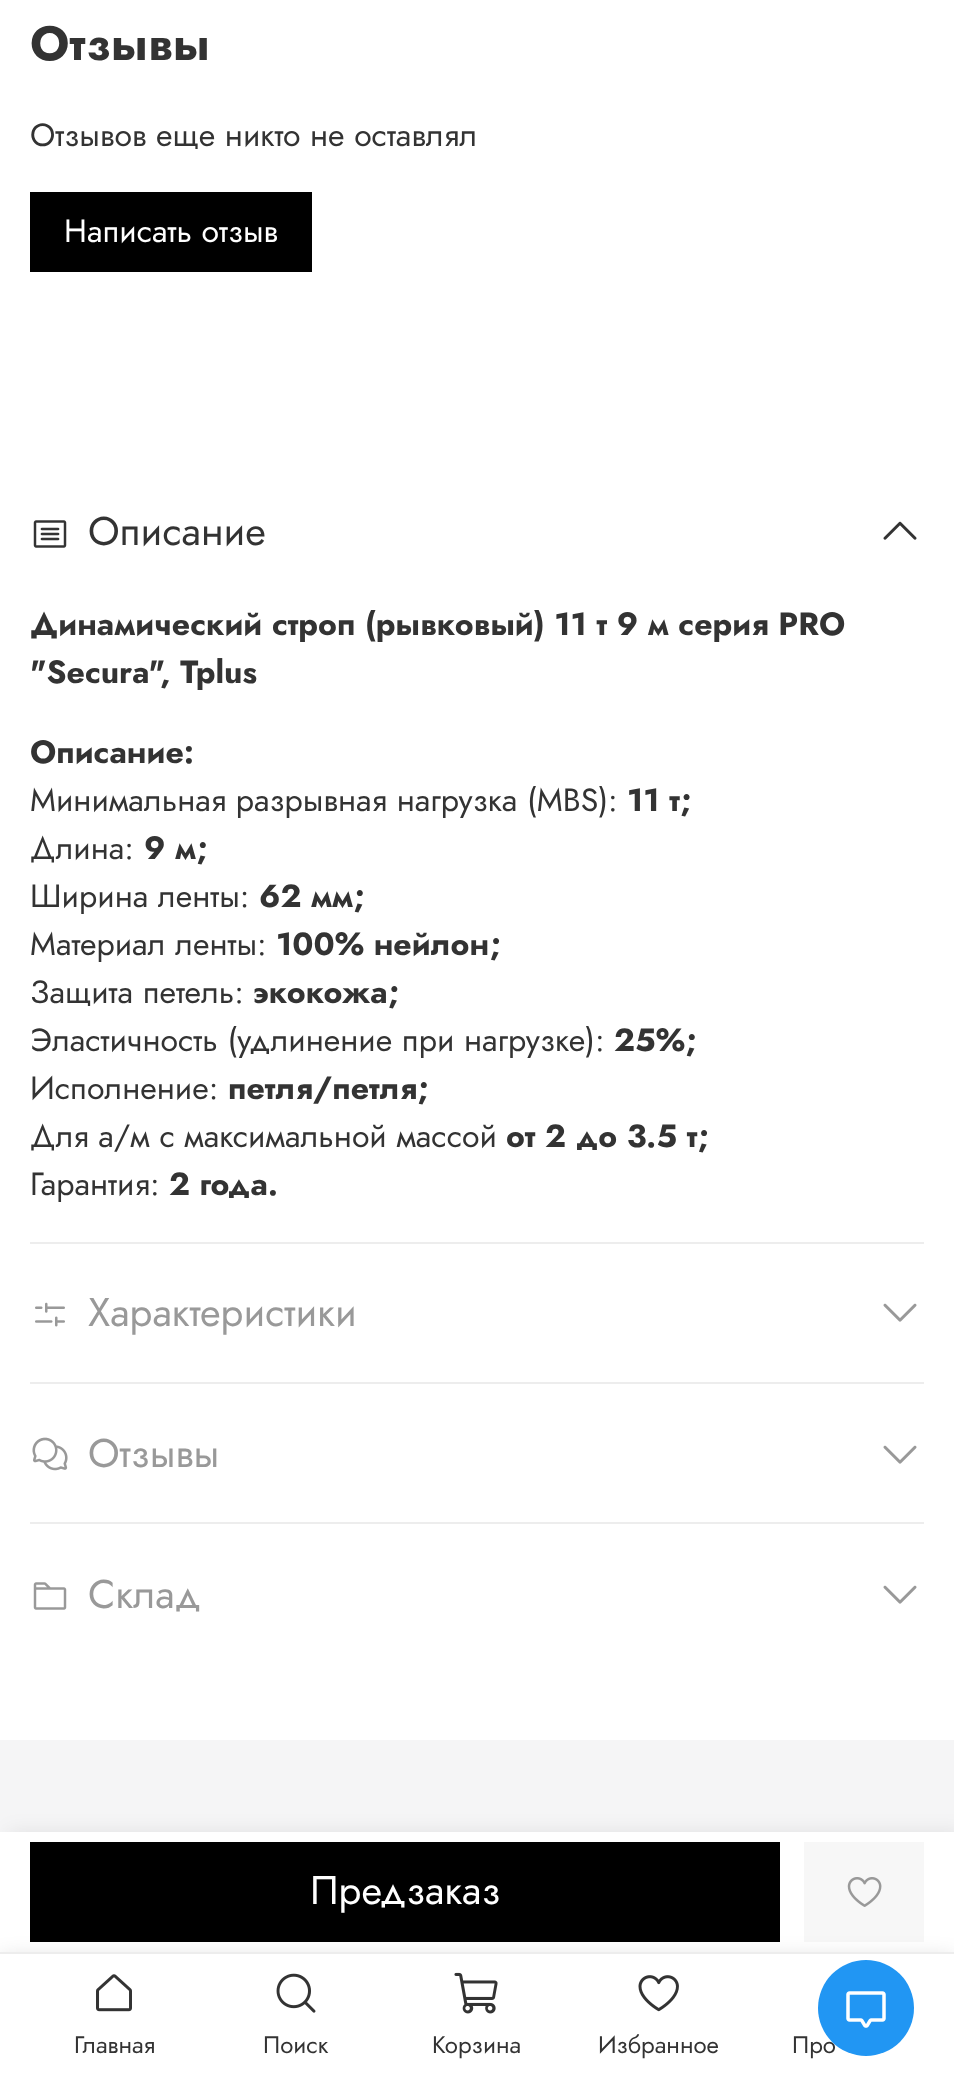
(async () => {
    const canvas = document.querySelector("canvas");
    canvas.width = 954;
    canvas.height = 2075;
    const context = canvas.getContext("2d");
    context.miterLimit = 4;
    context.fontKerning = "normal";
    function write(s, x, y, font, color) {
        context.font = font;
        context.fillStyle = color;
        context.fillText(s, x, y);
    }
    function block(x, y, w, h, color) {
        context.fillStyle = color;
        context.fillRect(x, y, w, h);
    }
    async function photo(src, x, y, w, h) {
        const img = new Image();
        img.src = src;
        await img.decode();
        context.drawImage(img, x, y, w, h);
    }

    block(0, 0, 954, 2075, "rgb(255, 255, 255)");
    write("Отзывы", 30, 60, "bold 48px Jost", "rgb(51, 51, 51)");
    write("Отзывов еще никто не оставлял", 30, 146, "32px Jost", "rgb(51, 51, 51)");
    block(30, 192, 282, 80, "rgb(0, 0, 0)");
    write("Написать отзыв", 64, 242, "32px Jost", "rgb(255, 255, 255)");
    block(0, 1740, 954, 92, "rgb(245, 245, 246)");
    context.fillStyle = "rgba(0, 0, 0, 0.08)";
    context.filter = "blur(10px)";
    context.beginPath();
    context.rect(8, 1832, 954, 120);
    context.fill();
    context.filter = "none";
    block(0, 1832, 954, 120, "rgb(255, 255, 255)");
    block(30, 1842, 750, 100, "rgb(0, 0, 0)");
    write("Предзаказ", 310, 1904, "40px Jost", "rgb(255, 255, 255)");
    block(804, 1842, 120, 100, "rgb(247, 247, 247)");
    await photo("media/1.png", 847, 1877, 35, 30);
    await photo("media/2.png", 33, 520, 34, 28);
    write("Описание", 88, 545, "40px Jost", "rgb(51, 51, 51)");
    await photo("media/3.png", 883, 521, 34, 19);
    write("Динамический строп (рывковый) 11 т 9 м серия PRO", 30, 635, "bold 32px Jost", "rgb(51, 51, 51)");
    write("\"Secura\", Tplus", 30, 683, "bold 32px Jost", "rgb(51, 51, 51)");
    write("Описание:", 30, 763, "bold 32px Jost", "rgb(51, 51, 51)");
    write("Минимальная разрывная нагрузка (MBS):", 30, 811, "32px Jost", "rgb(51, 51, 51)");
    write("11 т;", 627, 811, "bold 32px Jost", "rgb(51, 51, 51)");
    write("Длина:", 30, 859, "32px Jost", "rgb(51, 51, 51)");
    write("9 м;", 144, 859, "bold 32px Jost", "rgb(51, 51, 51)");
    write("Ширина ленты:", 30, 907, "32px Jost", "rgb(51, 51, 51)");
    write("62 мм;", 259, 907, "bold 32px Jost", "rgb(51, 51, 51)");
    write("Материал ленты:", 30, 955, "32px Jost", "rgb(51, 51, 51)");
    write("100% нейлон;", 276, 955, "bold 32px Jost", "rgb(51, 51, 51)");
    write("Защита петель:", 30, 1003, "32px Jost", "rgb(51, 51, 51)");
    write("экокожа;", 253, 1003, "bold 32px Jost", "rgb(51, 51, 51)");
    write("Эластичность (удлинение при нагрузке):", 30, 1051, "32px Jost", "rgb(51, 51, 51)");
    write("25%;", 614, 1051, "bold 32px Jost", "rgb(51, 51, 51)");
    write("Исполнение:", 30, 1099, "32px Jost", "rgb(51, 51, 51)");
    write("петля/петля;", 228, 1099, "bold 32px Jost", "rgb(51, 51, 51)");
    write("Для а/м с максимальной массой", 30, 1147, "32px Jost", "rgb(51, 51, 51)");
    write("от 2 до 3.5 т;", 506, 1147, "bold 32px Jost", "rgb(51, 51, 51)");
    write("Гарантия:", 30, 1195, "32px Jost", "rgb(51, 51, 51)");
    write("2 года.", 169, 1195, "bold 32px Jost", "rgb(51, 51, 51)");
    block(30, 1242, 894, 2, "rgb(237, 237, 237)");
    await photo("media/4.png", 35, 1302, 30, 25);
    write("Характеристики", 88, 1326, "40px Jost", "rgb(153, 153, 153)");
    await photo("media/5.png", 883, 1303, 34, 19);
    block(30, 1382, 894, 2, "rgb(237, 237, 237)");
    await photo("media/6.png", 32, 1437, 36, 34);
    write("Отзывы", 88, 1467, "40px Jost", "rgb(153, 153, 153)");
    await photo("media/5.png", 883, 1445, 34, 19);
    block(30, 1522, 894, 2, "rgb(237, 237, 237)");
    await photo("media/7.png", 33, 1582, 34, 28);
    write("Склад", 88, 1608, "40px Jost", "rgb(153, 153, 153)");
    await photo("media/5.png", 883, 1585, 34, 19);
    context.fillStyle = "rgba(0, 0, 0, 0.12)";
    context.filter = "blur(10px)";
    context.beginPath();
    context.rect(0, 1956, 954, 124);
    context.fill();
    context.filter = "none";
    block(0, 1954, 954, 121, "rgb(255, 255, 255)");
    block(0, 1952, 954, 2, "rgb(237, 237, 237)");
    await photo("media/8.png", 96, 1974, 36, 38);
    write("Главная", 74, 2053, "24px Jost", "rgb(51, 51, 51)");
    await photo("media/9.png", 276, 1973, 40, 40);
    write("Поиск", 263, 2053, "24px Jost", "rgb(51, 51, 51)");
    await photo("media/10.png", 454, 1972, 44, 42);
    write("Корзина", 432, 2053, "24px Jost", "rgb(51, 51, 51)");
    await photo("media/11.png", 638, 1975, 41, 37);
    write("Избранное", 598, 2053, "24px Jost", "rgb(51, 51, 51)");
    write("Про", 792, 2053, "24px Jost", "rgb(51, 51, 51)");
    context.fillStyle = "rgb(33, 150, 243)";
    context.beginPath();
    context.arc(866, 2008, 48, 0, Math.PI * 2);
    context.fill();
    await photo("media/12.png", 846, 1991, 40, 37);
})();
